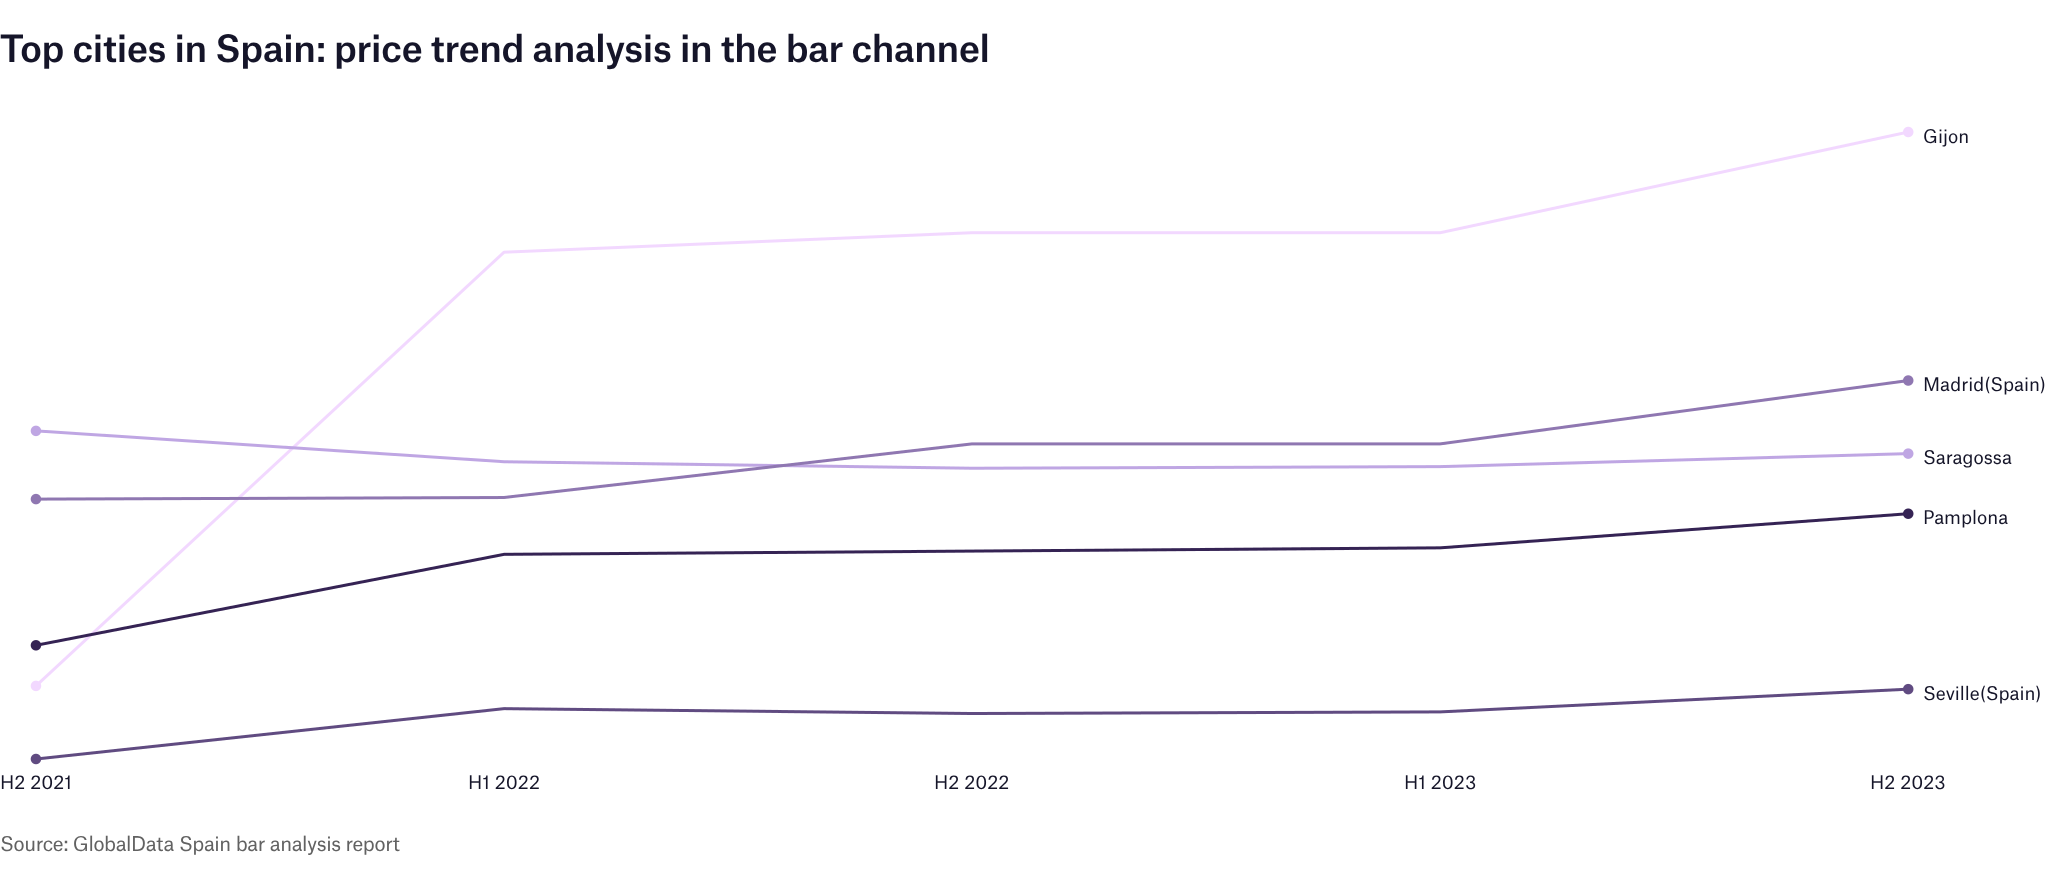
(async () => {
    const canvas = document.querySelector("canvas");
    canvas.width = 2060;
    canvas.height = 879;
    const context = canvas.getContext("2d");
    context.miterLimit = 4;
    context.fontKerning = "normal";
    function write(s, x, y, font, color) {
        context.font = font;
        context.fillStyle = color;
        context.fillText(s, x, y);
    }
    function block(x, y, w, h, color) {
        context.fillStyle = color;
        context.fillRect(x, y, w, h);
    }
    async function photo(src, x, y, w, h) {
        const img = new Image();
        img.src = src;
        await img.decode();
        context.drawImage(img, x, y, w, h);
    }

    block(0, 0, 2060, 879, "rgb(255, 255, 255)");
    context.letterSpacing = "-0.35px";
    write("Top cities in Spain: price trend analysis in the bar channel", 0, 62, "500 36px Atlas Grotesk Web", "rgb(21, 21, 41)");
    context.letterSpacing = "0px";
    write("Gijon", 1923, 143, "18px Atlas Grotesk Web", "rgb(21, 21, 41)");
    write("Madrid(Spain)", 1923, 391, "18px Atlas Grotesk Web", "rgb(21, 21, 41)");
    write("Saragossa", 1923, 464, "18px Atlas Grotesk Web", "rgb(21, 21, 41)");
    write("Pamplona", 1923, 524, "18px Atlas Grotesk Web", "rgb(21, 21, 41)");
    write("Seville(Spain)", 1923, 700, "18px Atlas Grotesk Web", "rgb(21, 21, 41)");
    await photo("media/1.png", 30, 126, 1884, 639);
    write("H2 2021", 0, 789, "18px Atlas Grotesk Web", "rgb(21, 21, 41)");
    write("H1 2022", 468, 789, "18px Atlas Grotesk Web", "rgb(21, 21, 41)");
    write("H2 2022", 934, 789, "18px Atlas Grotesk Web", "rgb(21, 21, 41)");
    write("H1 2023", 1404, 789, "18px Atlas Grotesk Web", "rgb(21, 21, 41)");
    write("H2 2023", 1870, 789, "18px Atlas Grotesk Web", "rgb(21, 21, 41)");
    context.letterSpacing = "-0.4px";
    write("Source: GlobalData Spain bar analysis report", 0, 851, "19.5px Atlas Grotesk Web", "rgb(98, 98, 98)");
})();
